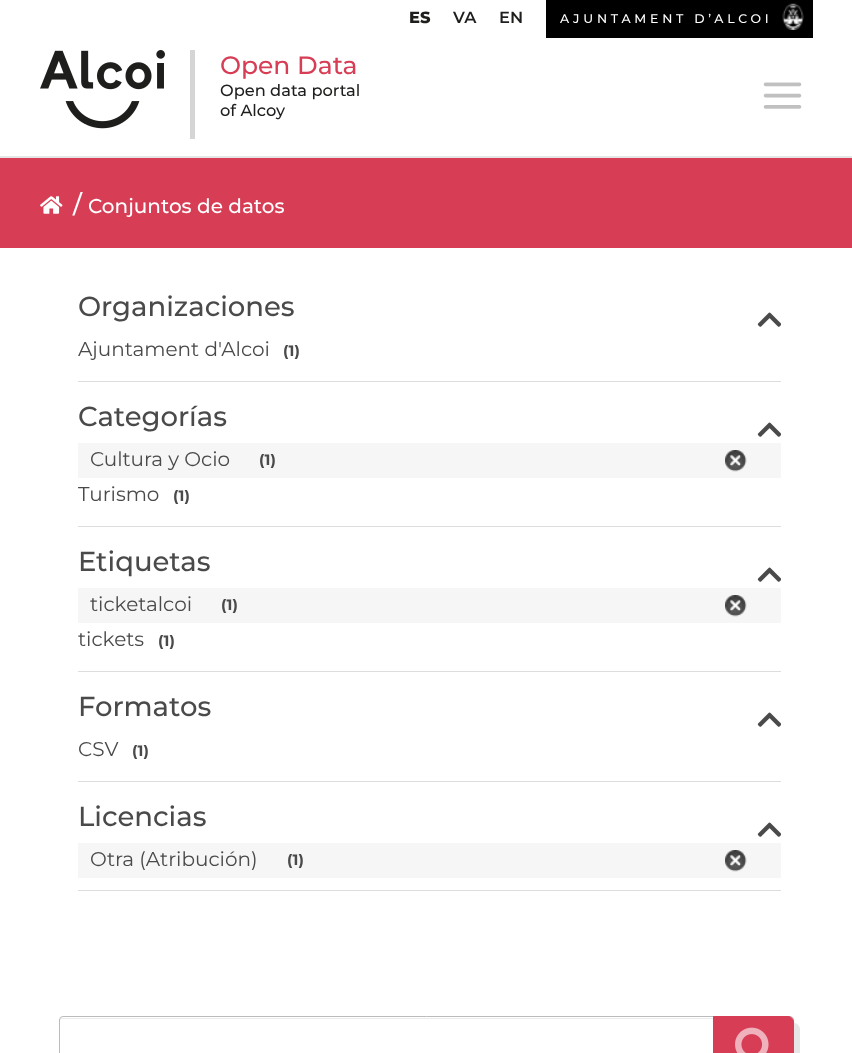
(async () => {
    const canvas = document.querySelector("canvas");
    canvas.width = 852;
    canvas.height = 1053;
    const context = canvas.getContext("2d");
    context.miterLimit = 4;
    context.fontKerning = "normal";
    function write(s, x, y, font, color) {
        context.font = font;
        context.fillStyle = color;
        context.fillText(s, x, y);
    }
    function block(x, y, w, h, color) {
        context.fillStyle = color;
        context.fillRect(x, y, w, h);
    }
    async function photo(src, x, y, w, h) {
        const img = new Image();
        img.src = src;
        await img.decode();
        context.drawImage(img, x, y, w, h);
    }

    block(0, 0, 852, 1053, "rgb(255, 255, 255)");
    write("ES", 409, 23, "800 16.25px Montserrat", "rgb(30, 30, 28)");
    write("VA", 453, 23, "600 16.25px Montserrat", "rgb(30, 30, 28)");
    write("EN", 499, 23, "600 16.25px Montserrat", "rgb(30, 30, 28)");
    block(546, 0, 267, 38, "rgb(0, 0, 0)");
    context.letterSpacing = "3.75px";
    write("AJUNTAMENT D’ALCOI", 560, 23, "500 12.5px Montserrat", "rgb(255, 255, 255)");
    await photo("media/1.png", 782, 3, 22, 27);
    context.fillStyle = "rgb(230, 230, 230)";
    context.beginPath();
    context.moveTo(0, 156);
    context.lineTo(0, 158);
    context.lineTo(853, 158);
    context.lineTo(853, 39);
    context.lineTo(852, 39);
    context.lineTo(852, 156);
    context.closePath();
    context.fill();
    await photo("media/2.png", 40, 50, 125, 79);
    block(190, 50, 5, 89, "rgb(213, 213, 213)");
    context.letterSpacing = "0px";
    write("Open Data", 220, 74, "500 25px Montserrat", "rgb(215, 62, 86)");
    write("Open data portal", 220, 96, "500 16.25px Montserrat", "rgb(30, 30, 28)");
    write("of Alcoy", 220, 116, "500 16.25px Montserrat", "rgb(30, 30, 28)");
    await photo("media/3.png", 763, 82, 39, 27);
    block(0, 158, 852, 90, "rgb(215, 62, 86)");
    await photo("media/4.png", 40, 196, 23, 18);
    write("/", 73, 213, "500 25px Montserrat", "rgb(255, 255, 255)");
    write("Conjuntos de datos", 88, 213, "500 20px Montserrat", "rgb(255, 255, 255)");
    block(78, 381, 703, 1, "rgb(221, 221, 221)");
    write("Organizaciones", 78, 316, "500 27.5px Montserrat", "rgb(74, 74, 74)");
    await photo("media/5.png", 757, 312, 24, 15);
    write("Ajuntament d'Alcoi", 78, 356, "20px Montserrat", "rgb(74, 74, 74)");
    write("(1)", 283, 356, "bold 15px Montserrat", "rgb(74, 74, 74)");
    block(78, 526, 703, 1, "rgb(221, 221, 221)");
    write("Categorías", 78, 426, "500 27.5px Montserrat", "rgb(74, 74, 74)");
    await photo("media/5.png", 757, 422, 24, 15);
    block(78, 443, 703, 35, "rgb(246, 246, 246)");
    write("Cultura y Ocio", 90, 466, "20px Montserrat", "rgb(74, 74, 74)");
    write("(1)", 259, 465, "bold 15px Montserrat", "rgb(74, 74, 74)");
    await photo("media/6.png", 725, 450, 22, 22);
    write("Turismo", 78, 501, "20px Montserrat", "rgb(74, 74, 74)");
    write("(1)", 173, 501, "bold 15px Montserrat", "rgb(74, 74, 74)");
    block(78, 671, 703, 1, "rgb(221, 221, 221)");
    write("Etiquetas", 78, 571, "500 27.5px Montserrat", "rgb(74, 74, 74)");
    await photo("media/5.png", 757, 567, 24, 15);
    block(78, 588, 703, 35, "rgb(246, 246, 246)");
    write("ticketalcoi", 90, 611, "20px Montserrat", "rgb(74, 74, 74)");
    write("(1)", 221, 610, "bold 15px Montserrat", "rgb(74, 74, 74)");
    await photo("media/6.png", 725, 595, 22, 22);
    write("tickets", 78, 646, "20px Montserrat", "rgb(74, 74, 74)");
    write("(1)", 158, 646, "bold 15px Montserrat", "rgb(74, 74, 74)");
    block(78, 781, 703, 1, "rgb(221, 221, 221)");
    write("Formatos", 78, 716, "500 27.5px Montserrat", "rgb(74, 74, 74)");
    await photo("media/5.png", 757, 712, 24, 15);
    write("CSV", 78, 756, "20px Montserrat", "rgb(74, 74, 74)");
    write("(1)", 132, 756, "bold 15px Montserrat", "rgb(74, 74, 74)");
    block(78, 890, 703, 1, "rgb(221, 221, 221)");
    write("Licencias", 78, 826, "500 27.5px Montserrat", "rgb(74, 74, 74)");
    await photo("media/5.png", 757, 822, 24, 15);
    block(78, 843, 703, 35, "rgb(246, 246, 246)");
    write("Otra (Atribución)", 90, 866, "20px Montserrat", "rgb(74, 74, 74)");
    write("(1)", 287, 865, "bold 15px Montserrat", "rgb(74, 74, 74)");
    await photo("media/6.png", 725, 850, 22, 22);
    context.fillStyle = "rgb(230, 230, 230)";
    context.beginPath();
    context.moveTo(65, 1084);
    context.bezierCurveTo(65, 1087, 68, 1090, 71, 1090);
    context.lineTo(794, 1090);
    context.bezierCurveTo(797, 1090, 800, 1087, 800, 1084);
    context.lineTo(800, 1029);
    context.bezierCurveTo(800, 1026, 797, 1023, 794, 1023);
    context.lineTo(794, 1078);
    context.bezierCurveTo(794, 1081, 791, 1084, 788, 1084);
    context.closePath();
    context.fill();
    context.fillStyle = "rgb(236, 236, 236)";
    context.beginPath();
    context.moveTo(62, 1019);
    context.lineTo(790, 1019);
    context.bezierCurveTo(791, 1019, 792, 1020, 792, 1021);
    context.lineTo(792, 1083);
    context.bezierCurveTo(792, 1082, 793, 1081, 793, 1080);
    context.lineTo(793, 1020);
    context.bezierCurveTo(793, 1019, 792, 1018, 790, 1018);
    context.lineTo(62, 1018);
    context.bezierCurveTo(61, 1018, 60, 1019, 60, 1020);
    context.lineTo(60, 1021);
    context.bezierCurveTo(60, 1020, 61, 1019, 62, 1019);
    context.closePath();
    context.fill();
    context.beginPath();
    context.roundRect(59.5, 1016.5, 734, 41, 3.5);
    context.strokeStyle = "rgb(187, 187, 187)";
    context.stroke();
    context.fillStyle = "rgb(215, 62, 86)";
    context.beginPath();
    context.moveTo(713.5, 1016.5);
    context.lineTo(788, 1016.5);
    context.bezierCurveTo(791, 1016.5, 793.5, 1019, 793.5, 1022);
    context.lineTo(793.5, 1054);
    context.bezierCurveTo(793.5, 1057, 791, 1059.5, 788, 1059.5);
    context.lineTo(713.5, 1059.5);
    context.closePath();
    context.fill();
    context.strokeStyle = "rgb(215, 62, 86)";
    context.stroke();
    await photo("media/7.png", 735, 1027, 34, 26);
})();
